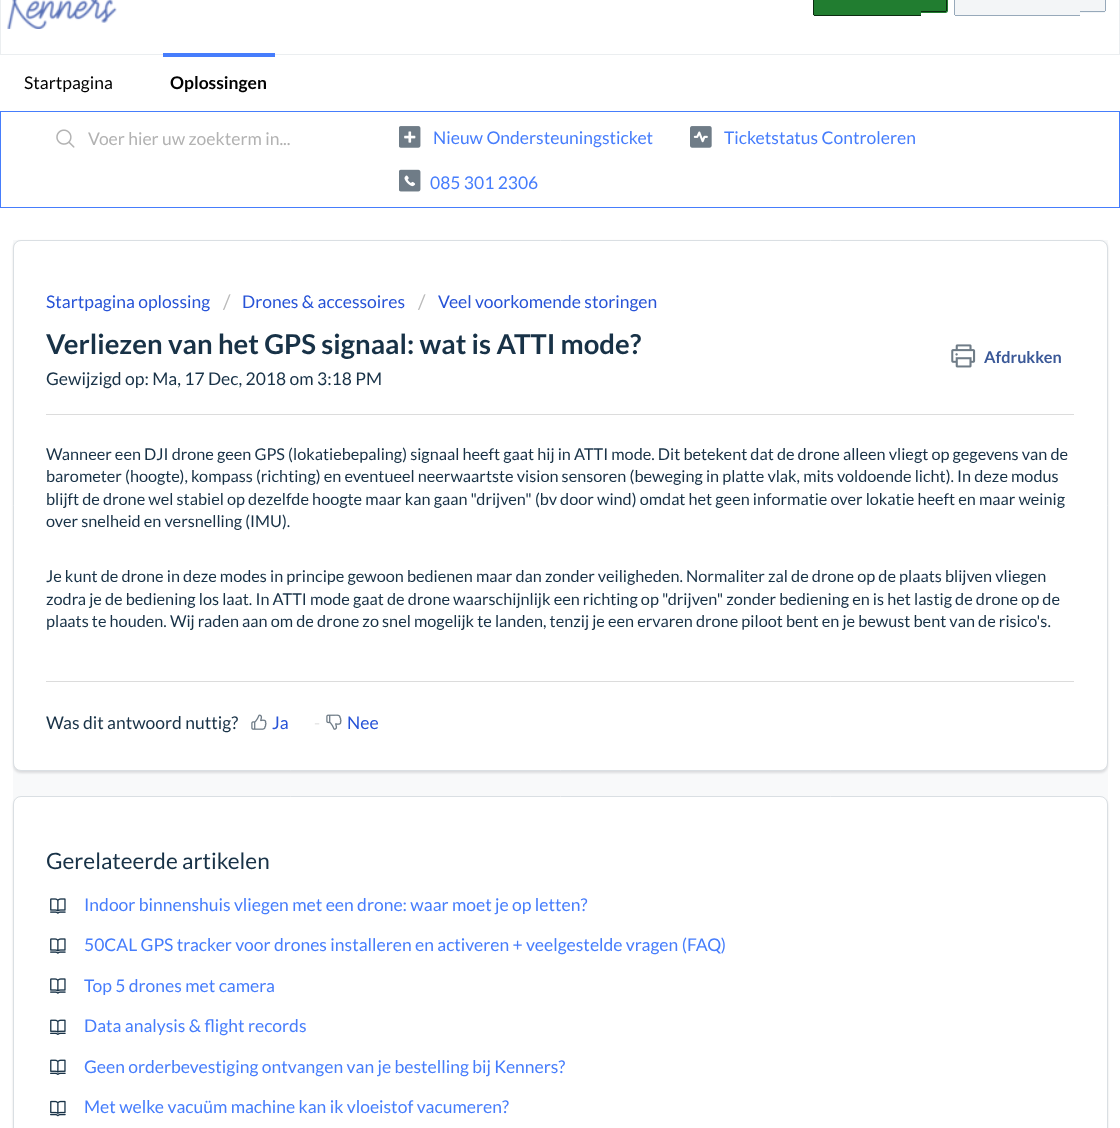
(async () => {
    const canvas = document.querySelector("canvas");
    canvas.width = 1120;
    canvas.height = 1128;
    const context = canvas.getContext("2d");
    context.miterLimit = 4;
    context.fontKerning = "normal";
    function write(s, x, y, font, color) {
        context.font = font;
        context.fillStyle = color;
        context.fillText(s, x, y);
    }
    function block(x, y, w, h, color) {
        context.fillStyle = color;
        context.fillRect(x, y, w, h);
    }
    async function photo(src, x, y, w, h) {
        const img = new Image();
        img.src = src;
        await img.decode();
        context.drawImage(img, x, y, w, h);
    }

    block(0, 0, 1120, 1128, "rgb(255, 255, 255)");
    context.strokeStyle = "rgb(235, 238, 240)";
    context.strokeRect(0.5, -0.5, 1119, 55);
    await photo("media/1.png", 7, 0, 110, 29);
    context.fillStyle = "rgb(33, 125, 48)";
    context.beginPath();
    context.moveTo(815.5, -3);
    context.lineTo(921, -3);
    context.lineTo(921, 16);
    context.lineTo(815.5, 16);
    context.bezierCurveTo(814, 16, 813, 15, 813, 13.5);
    context.lineTo(813, -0.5);
    context.bezierCurveTo(813, -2, 814, -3, 815.5, -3);
    context.closePath();
    context.fill();
    context.beginPath();
    context.moveTo(921, -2);
    context.lineTo(945.5, -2);
    context.bezierCurveTo(947, -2, 948, -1, 948, 0.5);
    context.lineTo(948, 10.5);
    context.bezierCurveTo(948, 12, 947, 13, 945.5, 13);
    context.lineTo(921, 13);
    context.closePath();
    context.fill();
    context.fillStyle = "rgb(243, 245, 247)";
    context.beginPath();
    context.moveTo(956.5, -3);
    context.lineTo(1080, -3);
    context.lineTo(1080, 16);
    context.lineTo(956.5, 16);
    context.bezierCurveTo(955, 16, 954, 15, 954, 13.5);
    context.lineTo(954, -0.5);
    context.bezierCurveTo(954, -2, 955, -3, 956.5, -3);
    context.closePath();
    context.fill();
    context.beginPath();
    context.moveTo(1080, -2);
    context.lineTo(1103.5, -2);
    context.bezierCurveTo(1105, -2, 1106, -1, 1106, 0.5);
    context.lineTo(1106, 10.5);
    context.bezierCurveTo(1106, 12, 1105, 13, 1103.5, 13);
    context.lineTo(1080, 13);
    context.closePath();
    context.fill();
    block(813, 0, 1, 15, "rgb(12, 44, 17)");
    block(946, 0, 1, 11, "rgb(12, 44, 17)");
    block(954, 0, 1, 15, "rgb(151, 169, 186)");
    block(1105, 0, 1, 11, "rgb(151, 169, 186)");
    block(921, 11, 25, 1, "rgb(12, 44, 17)");
    block(1080, 11, 25, 1, "rgb(151, 169, 186)");
    block(814, 15, 107, 1, "rgb(12, 44, 17)");
    block(955, 15, 125, 1, "rgb(151, 169, 186)");
    write("Startpagina", 24, 89, "17.5px Lato", "rgb(0, 0, 0)");
    block(163, 53, 112, 4, "rgb(70, 125, 252)");
    write("Oplossingen", 170, 89, "bold 17.5px Lato", "rgb(0, 0, 0)");
    context.strokeStyle = "rgb(70, 125, 252)";
    context.strokeRect(0.5, 111.5, 1119, 96);
    await photo("media/2.png", 56, 129, 19, 19);
    write("Voer hier uw zoekterm in...", 88, 145, "17.5px Lato", "rgb(178, 178, 178)");
    await photo("media/3.png", 399, 126, 22, 22);
    write("Nieuw Ondersteuningsticket", 433, 144, "17.5px Lato", "rgb(70, 125, 252)");
    await photo("media/4.png", 690, 126, 22, 22);
    write("Ticketstatus Controleren", 724, 144, "17.5px Lato", "rgb(70, 125, 252)");
    await photo("media/5.png", 399, 169, 22, 23);
    write("085 301 2306", 430, 189, "17.5px Lato", "rgb(70, 125, 252)");
    block(13, 240, 1095, 564, "rgb(248, 249, 250)");
    context.fillStyle = "rgba(63, 63, 68, 0.15)";
    context.filter = "blur(1px)";
    context.beginPath();
    context.roundRect(13, 241, 1095, 532, 8);
    context.fill();
    context.filter = "none";
    context.fillStyle = "rgb(255, 255, 255)";
    context.beginPath();
    context.roundRect(13.5, 240.5, 1094, 530, 7.5);
    context.fill();
    context.strokeStyle = "rgb(218, 223, 227)";
    context.stroke();
    write("Startpagina oplossing", 46, 308, "17.5px Lato", "rgb(39, 83, 215)");
    write("/", 223, 309, "20px Lato", "rgb(187, 187, 187)");
    write("Drones & accessoires", 242, 308, "17.5px Lato", "rgb(39, 83, 215)");
    write("/", 418, 309, "20px Lato", "rgb(187, 187, 187)");
    write("Veel voorkomende storingen", 438, 308, "17.5px Lato", "rgb(39, 83, 215)");
    write("Verliezen van het GPS signaal: wat is ATTI mode?", 46, 354, "bold 27.5px Lato", "rgb(24, 50, 71)");
    await photo("media/6.png", 951, 344, 25, 24);
    write("Afdrukken", 984, 363, "bold 16.25px Lato", "rgb(59, 89, 152)");
    write("Gewijzigd op: Ma, 17 Dec, 2018 om 3:18 PM", 46, 385, "17.5px Lato", "rgb(24, 50, 71)");
    block(46, 414, 1028, 1, "rgb(220, 220, 220)");
    write("Wanneer een DJI drone geen GPS (lokatiebepaling) signaal heeft gaat hij in ATTI mode. Dit betekent dat de drone alleen vliegt op gegevens van de", 46, 460, "16.25px Lato", "rgb(24, 50, 71)");
    write("barometer (hoogte), kompass (richting) en eventueel neerwaartste vision sensoren (beweging in platte vlak, mits voldoende licht). In deze modus", 46, 482, "16.25px Lato", "rgb(24, 50, 71)");
    write("blijft de drone wel stabiel op dezelfde hoogte maar kan gaan \"drijven\" (bv door wind) omdat het geen informatie over lokatie heeft en maar weinig", 46, 505, "16.25px Lato", "rgb(24, 50, 71)");
    write("over snelheid en versnelling (IMU).", 46, 527, "16.25px Lato", "rgb(24, 50, 71)");
    write("Je kunt de drone in deze modes in principe gewoon bedienen maar dan zonder veiligheden. Normaliter zal de drone op de plaats blijven vliegen", 46, 582, "16.25px Lato", "rgb(24, 50, 71)");
    write("zodra je de bediening los laat. In ATTI mode gaat de drone waarschijnlijk een richting op \"drijven\" zonder bediening en is het lastig de drone op de", 46, 605, "16.25px Lato", "rgb(24, 50, 71)");
    write("plaats te houden. Wij raden aan om de drone zo snel mogelijk te landen, tenzij je een ervaren drone piloot bent en je bewust bent van de risico's.", 46, 627, "16.25px Lato", "rgb(24, 50, 71)");
    block(46, 681, 1028, 1, "rgb(220, 220, 220)");
    write("Was dit antwoord nuttig?", 46, 729, "17.5px Lato", "rgb(24, 50, 71)");
    await photo("media/7.png", 251, 714, 16, 16);
    write("Ja", 272, 729, "17.5px Lato", "rgb(39, 83, 215)");
    write("-", 314, 729, "17.5px Lato", "rgb(229, 229, 229)");
    await photo("media/8.png", 326, 714, 16, 16);
    write("Nee", 347, 729, "17.5px Lato", "rgb(39, 83, 215)");
    context.fillStyle = "rgba(63, 63, 68, 0.15)";
    context.filter = "blur(1px)";
    context.beginPath();
    context.roundRect(13, 798, 1095, 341, 8);
    context.fill();
    context.filter = "none";
    context.fillStyle = "rgb(255, 255, 255)";
    context.beginPath();
    context.roundRect(13.5, 796.5, 1094, 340, 7.5);
    context.fill();
    context.stroke();
    write("Gerelateerde artikelen", 46, 869, "22.5px Lato", "rgb(24, 50, 71)");
    await photo("media/9.png", 50, 898, 16, 16);
    write("Indoor binnenshuis vliegen met een drone: waar moet je op letten?", 84, 911, "17.5px Lato", "rgb(70, 125, 252)");
    await photo("media/9.png", 50, 938, 16, 16);
    write("50CAL GPS tracker voor drones installeren en activeren + veelgestelde vragen (FAQ)", 84, 951, "17.5px Lato", "rgb(70, 125, 252)");
    await photo("media/9.png", 50, 978, 16, 16);
    write("Top 5 drones met camera", 84, 992, "17.5px Lato", "rgb(70, 125, 252)");
    await photo("media/10.png", 50, 1019, 16, 16);
    write("Data analysis & flight records", 84, 1032, "17.5px Lato", "rgb(70, 125, 252)");
    await photo("media/10.png", 50, 1059, 16, 16);
    write("Geen orderbevestiging ontvangen van je bestelling bij Kenners?", 84, 1073, "17.5px Lato", "rgb(70, 125, 252)");
    await photo("media/11.png", 50, 1100, 16, 17);
    write("Met welke vacuüm machine kan ik vloeistof vacumeren?", 84, 1113, "17.5px Lato", "rgb(70, 125, 252)");
})();
